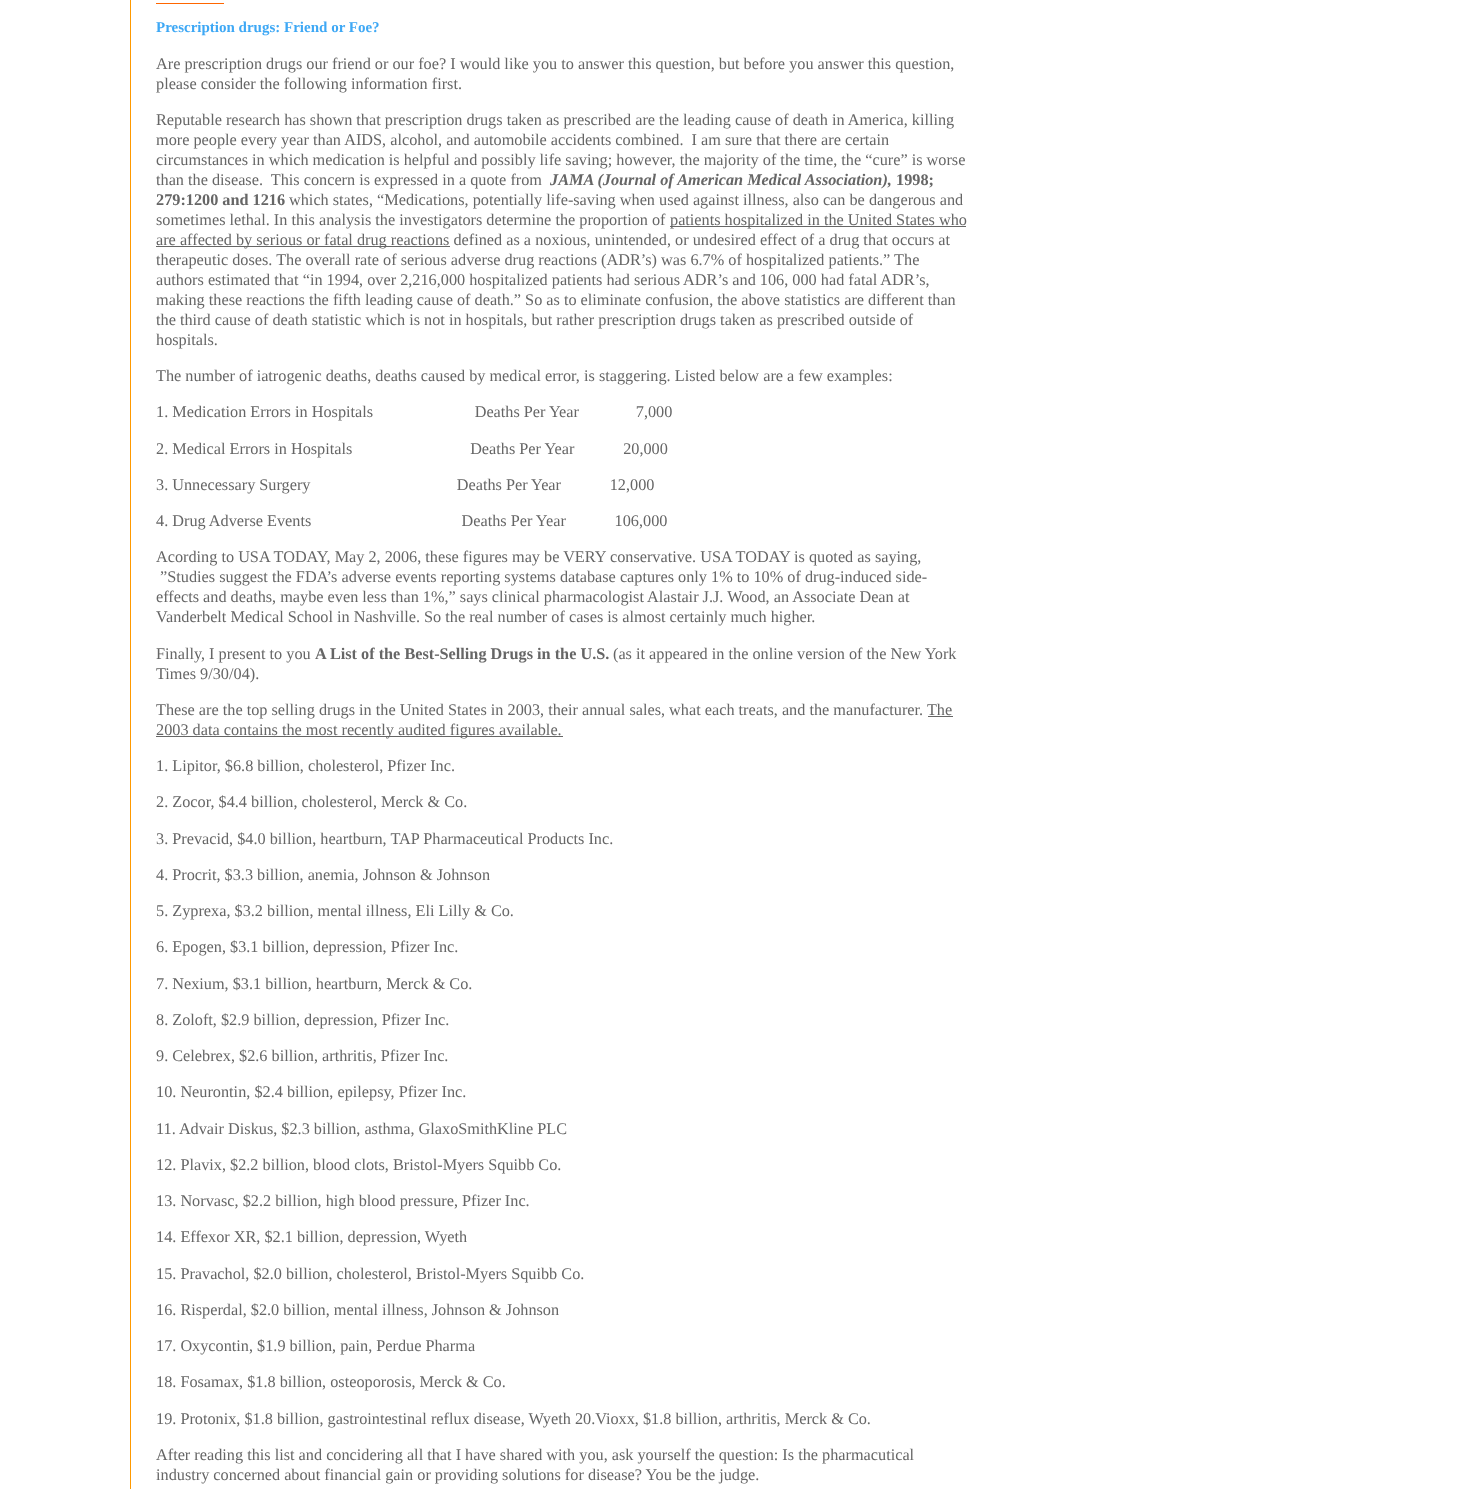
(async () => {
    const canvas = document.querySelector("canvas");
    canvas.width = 1484;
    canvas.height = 1489;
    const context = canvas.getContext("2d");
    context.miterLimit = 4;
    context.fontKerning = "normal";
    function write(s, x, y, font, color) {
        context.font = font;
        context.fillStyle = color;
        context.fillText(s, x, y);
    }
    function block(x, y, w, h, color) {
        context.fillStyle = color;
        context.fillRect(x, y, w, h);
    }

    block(0, 0, 1484, 1489, "rgb(255, 255, 255)");
    block(130, 0, 1, 1489, "rgb(255, 153, 0)");
    block(156, 3, 68, 1, "rgb(255, 102, 0)");
    write("Prescription drugs: Friend or Foe?", 156, 32, "bold 15px Liberation Serif", "rgb(62, 168, 245)");
    write("Are prescription drugs our friend or our foe? I would like you to answer this question, but before you answer this question,", 156, 69, "16.25px Liberation Serif", "rgb(102, 102, 102)");
    write("please consider the following information first.", 156, 89, "16.25px Liberation Serif", "rgb(102, 102, 102)");
    write("Reputable research has shown that prescription drugs taken as prescribed are the leading cause of death in America, killing", 156, 125, "16.25px Liberation Serif", "rgb(102, 102, 102)");
    write("more people every year than AIDS, alcohol, and automobile accidents combined.  I am sure that there are certain", 156, 145, "16.25px Liberation Serif", "rgb(102, 102, 102)");
    write("circumstances in which medication is helpful and possibly life saving; however, the majority of the time, the “cure” is worse", 156, 165, "16.25px Liberation Serif", "rgb(102, 102, 102)");
    write("than the disease.  This concern is expressed in a quote from", 156, 185, "16.25px Liberation Serif", "rgb(102, 102, 102)");
    write("JAMA (Journal of American Medical Association),", 550, 185, "italic bold 16.25px Liberation Serif", "rgb(102, 102, 102)");
    write("1998;", 896, 185, "bold 16.25px Liberation Serif", "rgb(102, 102, 102)");
    write("279:1200 and 1216", 156, 205, "bold 16.25px Liberation Serif", "rgb(102, 102, 102)");
    write("which states, “Medications, potentially life-saving when used against illness, also can be dangerous and", 289, 205, "16.25px Liberation Serif", "rgb(102, 102, 102)");
    write("sometimes lethal. In this analysis the investigators determine the proportion of", 156, 225, "16.25px Liberation Serif", "rgb(102, 102, 102)");
    block(670, 226, 296, 1, "rgb(102, 102, 102)");
    write("patients hospitalized in the United States who", 670, 225, "16.25px Liberation Serif", "rgb(102, 102, 102)");
    block(156, 246, 294, 1, "rgb(102, 102, 102)");
    write("are affected by serious or fatal drug reactions defined as a noxious, unintended, or undesired effect of a drug that occurs at", 156, 245, "16.25px Liberation Serif", "rgb(102, 102, 102)");
    write("therapeutic doses. The overall rate of serious adverse drug reactions (ADR’s) was 6.7% of hospitalized patients.” The", 156, 265, "16.25px Liberation Serif", "rgb(102, 102, 102)");
    write("authors estimated that “in 1994, over 2,216,000 hospitalized patients had serious ADR’s and 106, 000 had fatal ADR’s,", 156, 285, "16.25px Liberation Serif", "rgb(102, 102, 102)");
    write("making these reactions the fifth leading cause of death.” So as to eliminate confusion, the above statistics are different than", 156, 305, "16.25px Liberation Serif", "rgb(102, 102, 102)");
    write("the third cause of death statistic which is not in hospitals, but rather prescription drugs taken as prescribed outside of", 156, 325, "16.25px Liberation Serif", "rgb(102, 102, 102)");
    write("hospitals.", 156, 345, "16.25px Liberation Serif", "rgb(102, 102, 102)");
    write("The number of iatrogenic deaths, deaths caused by medical error, is staggering. Listed below are a few examples:", 156, 381, "16.25px Liberation Serif", "rgb(102, 102, 102)");
    write("1. Medication Errors in Hospitals                         Deaths Per Year              7,000", 156, 417, "16.25px Liberation Serif", "rgb(102, 102, 102)");
    write("2. Medical Errors in Hospitals                             Deaths Per Year            20,000", 156, 454, "16.25px Liberation Serif", "rgb(102, 102, 102)");
    write("3. Unnecessary Surgery                                    Deaths Per Year            12,000", 156, 490, "16.25px Liberation Serif", "rgb(102, 102, 102)");
    write("4. Drug Adverse Events                                     Deaths Per Year            106,000", 156, 526, "16.25px Liberation Serif", "rgb(102, 102, 102)");
    write("Acording to USA TODAY, May 2, 2006, these figures may be VERY conservative. USA TODAY is quoted as saying,", 156, 562, "16.25px Liberation Serif", "rgb(102, 102, 102)");
    write("”Studies suggest the FDA’s adverse events reporting systems database captures only 1% to 10% of drug-induced side-", 160, 582, "16.25px Liberation Serif", "rgb(102, 102, 102)");
    write("effects and deaths, maybe even less than 1%,” says clinical pharmacologist Alastair J.J. Wood, an Associate Dean at", 156, 602, "16.25px Liberation Serif", "rgb(102, 102, 102)");
    write("Vanderbelt Medical School in Nashville. So the real number of cases is almost certainly much higher.", 156, 622, "16.25px Liberation Serif", "rgb(102, 102, 102)");
    write("Finally, I present to you", 156, 659, "16.25px Liberation Serif", "rgb(102, 102, 102)");
    write("A List of the Best-Selling Drugs in the U.S.", 315, 659, "bold 16.25px Liberation Serif", "rgb(102, 102, 102)");
    write("(as it appeared in the online version of the New York", 613, 659, "16.25px Liberation Serif", "rgb(102, 102, 102)");
    write("Times 9/30/04).", 156, 679, "16.25px Liberation Serif", "rgb(102, 102, 102)");
    write("These are the top selling drugs in the United States in 2003, their annual sales, what each treats, and the manufacturer. The", 156, 715, "16.25px Liberation Serif", "rgb(102, 102, 102)");
    block(928, 716, 25, 1, "rgb(102, 102, 102)");
    block(156, 736, 407, 1, "rgb(102, 102, 102)");
    write("2003 data contains the most recently audited figures available.", 156, 735, "16.25px Liberation Serif", "rgb(102, 102, 102)");
    write("1. Lipitor, $6.8 billion, cholesterol, Pfizer Inc.", 156, 771, "16.25px Liberation Serif", "rgb(102, 102, 102)");
    write("2. Zocor, $4.4 billion, cholesterol, Merck & Co.", 156, 807, "16.25px Liberation Serif", "rgb(102, 102, 102)");
    write("3. Prevacid, $4.0 billion, heartburn, TAP Pharmaceutical Products Inc.", 156, 844, "16.25px Liberation Serif", "rgb(102, 102, 102)");
    write("4. Procrit, $3.3 billion, anemia, Johnson & Johnson", 156, 880, "16.25px Liberation Serif", "rgb(102, 102, 102)");
    write("5. Zyprexa, $3.2 billion, mental illness, Eli Lilly & Co.", 156, 916, "16.25px Liberation Serif", "rgb(102, 102, 102)");
    write("6. Epogen, $3.1 billion, depression, Pfizer Inc.", 156, 952, "16.25px Liberation Serif", "rgb(102, 102, 102)");
    write("7. Nexium, $3.1 billion, heartburn, Merck & Co.", 156, 989, "16.25px Liberation Serif", "rgb(102, 102, 102)");
    write("8. Zoloft, $2.9 billion, depression, Pfizer Inc.", 156, 1025, "16.25px Liberation Serif", "rgb(102, 102, 102)");
    write("9. Celebrex, $2.6 billion, arthritis, Pfizer Inc.", 156, 1061, "16.25px Liberation Serif", "rgb(102, 102, 102)");
    write("10. Neurontin, $2.4 billion, epilepsy, Pfizer Inc.", 156, 1097, "16.25px Liberation Serif", "rgb(102, 102, 102)");
    write("11. Advair Diskus, $2.3 billion, asthma, GlaxoSmithKline PLC", 156, 1134, "16.25px Liberation Serif", "rgb(102, 102, 102)");
    write("12. Plavix, $2.2 billion, blood clots, Bristol-Myers Squibb Co.", 156, 1170, "16.25px Liberation Serif", "rgb(102, 102, 102)");
    write("13. Norvasc, $2.2 billion, high blood pressure, Pfizer Inc.", 156, 1206, "16.25px Liberation Serif", "rgb(102, 102, 102)");
    write("14. Effexor XR, $2.1 billion, depression, Wyeth", 156, 1242, "16.25px Liberation Serif", "rgb(102, 102, 102)");
    write("15. Pravachol, $2.0 billion, cholesterol, Bristol-Myers Squibb Co.", 156, 1279, "16.25px Liberation Serif", "rgb(102, 102, 102)");
    write("16. Risperdal, $2.0 billion, mental illness, Johnson & Johnson", 156, 1315, "16.25px Liberation Serif", "rgb(102, 102, 102)");
    write("17. Oxycontin, $1.9 billion, pain, Perdue Pharma", 156, 1351, "16.25px Liberation Serif", "rgb(102, 102, 102)");
    write("18. Fosamax, $1.8 billion, osteoporosis, Merck & Co.", 156, 1387, "16.25px Liberation Serif", "rgb(102, 102, 102)");
    write("19. Protonix, $1.8 billion, gastrointestinal reflux disease, Wyeth 20.Vioxx, $1.8 billion, arthritis, Merck & Co.", 156, 1424, "16.25px Liberation Serif", "rgb(102, 102, 102)");
    write("After reading this list and concidering all that I have shared with you, ask yourself the question: Is the pharmacutical", 156, 1460, "16.25px Liberation Serif", "rgb(102, 102, 102)");
    write("industry concerned about financial gain or providing solutions for disease? You be the judge.", 156, 1480, "16.25px Liberation Serif", "rgb(102, 102, 102)");
})();
